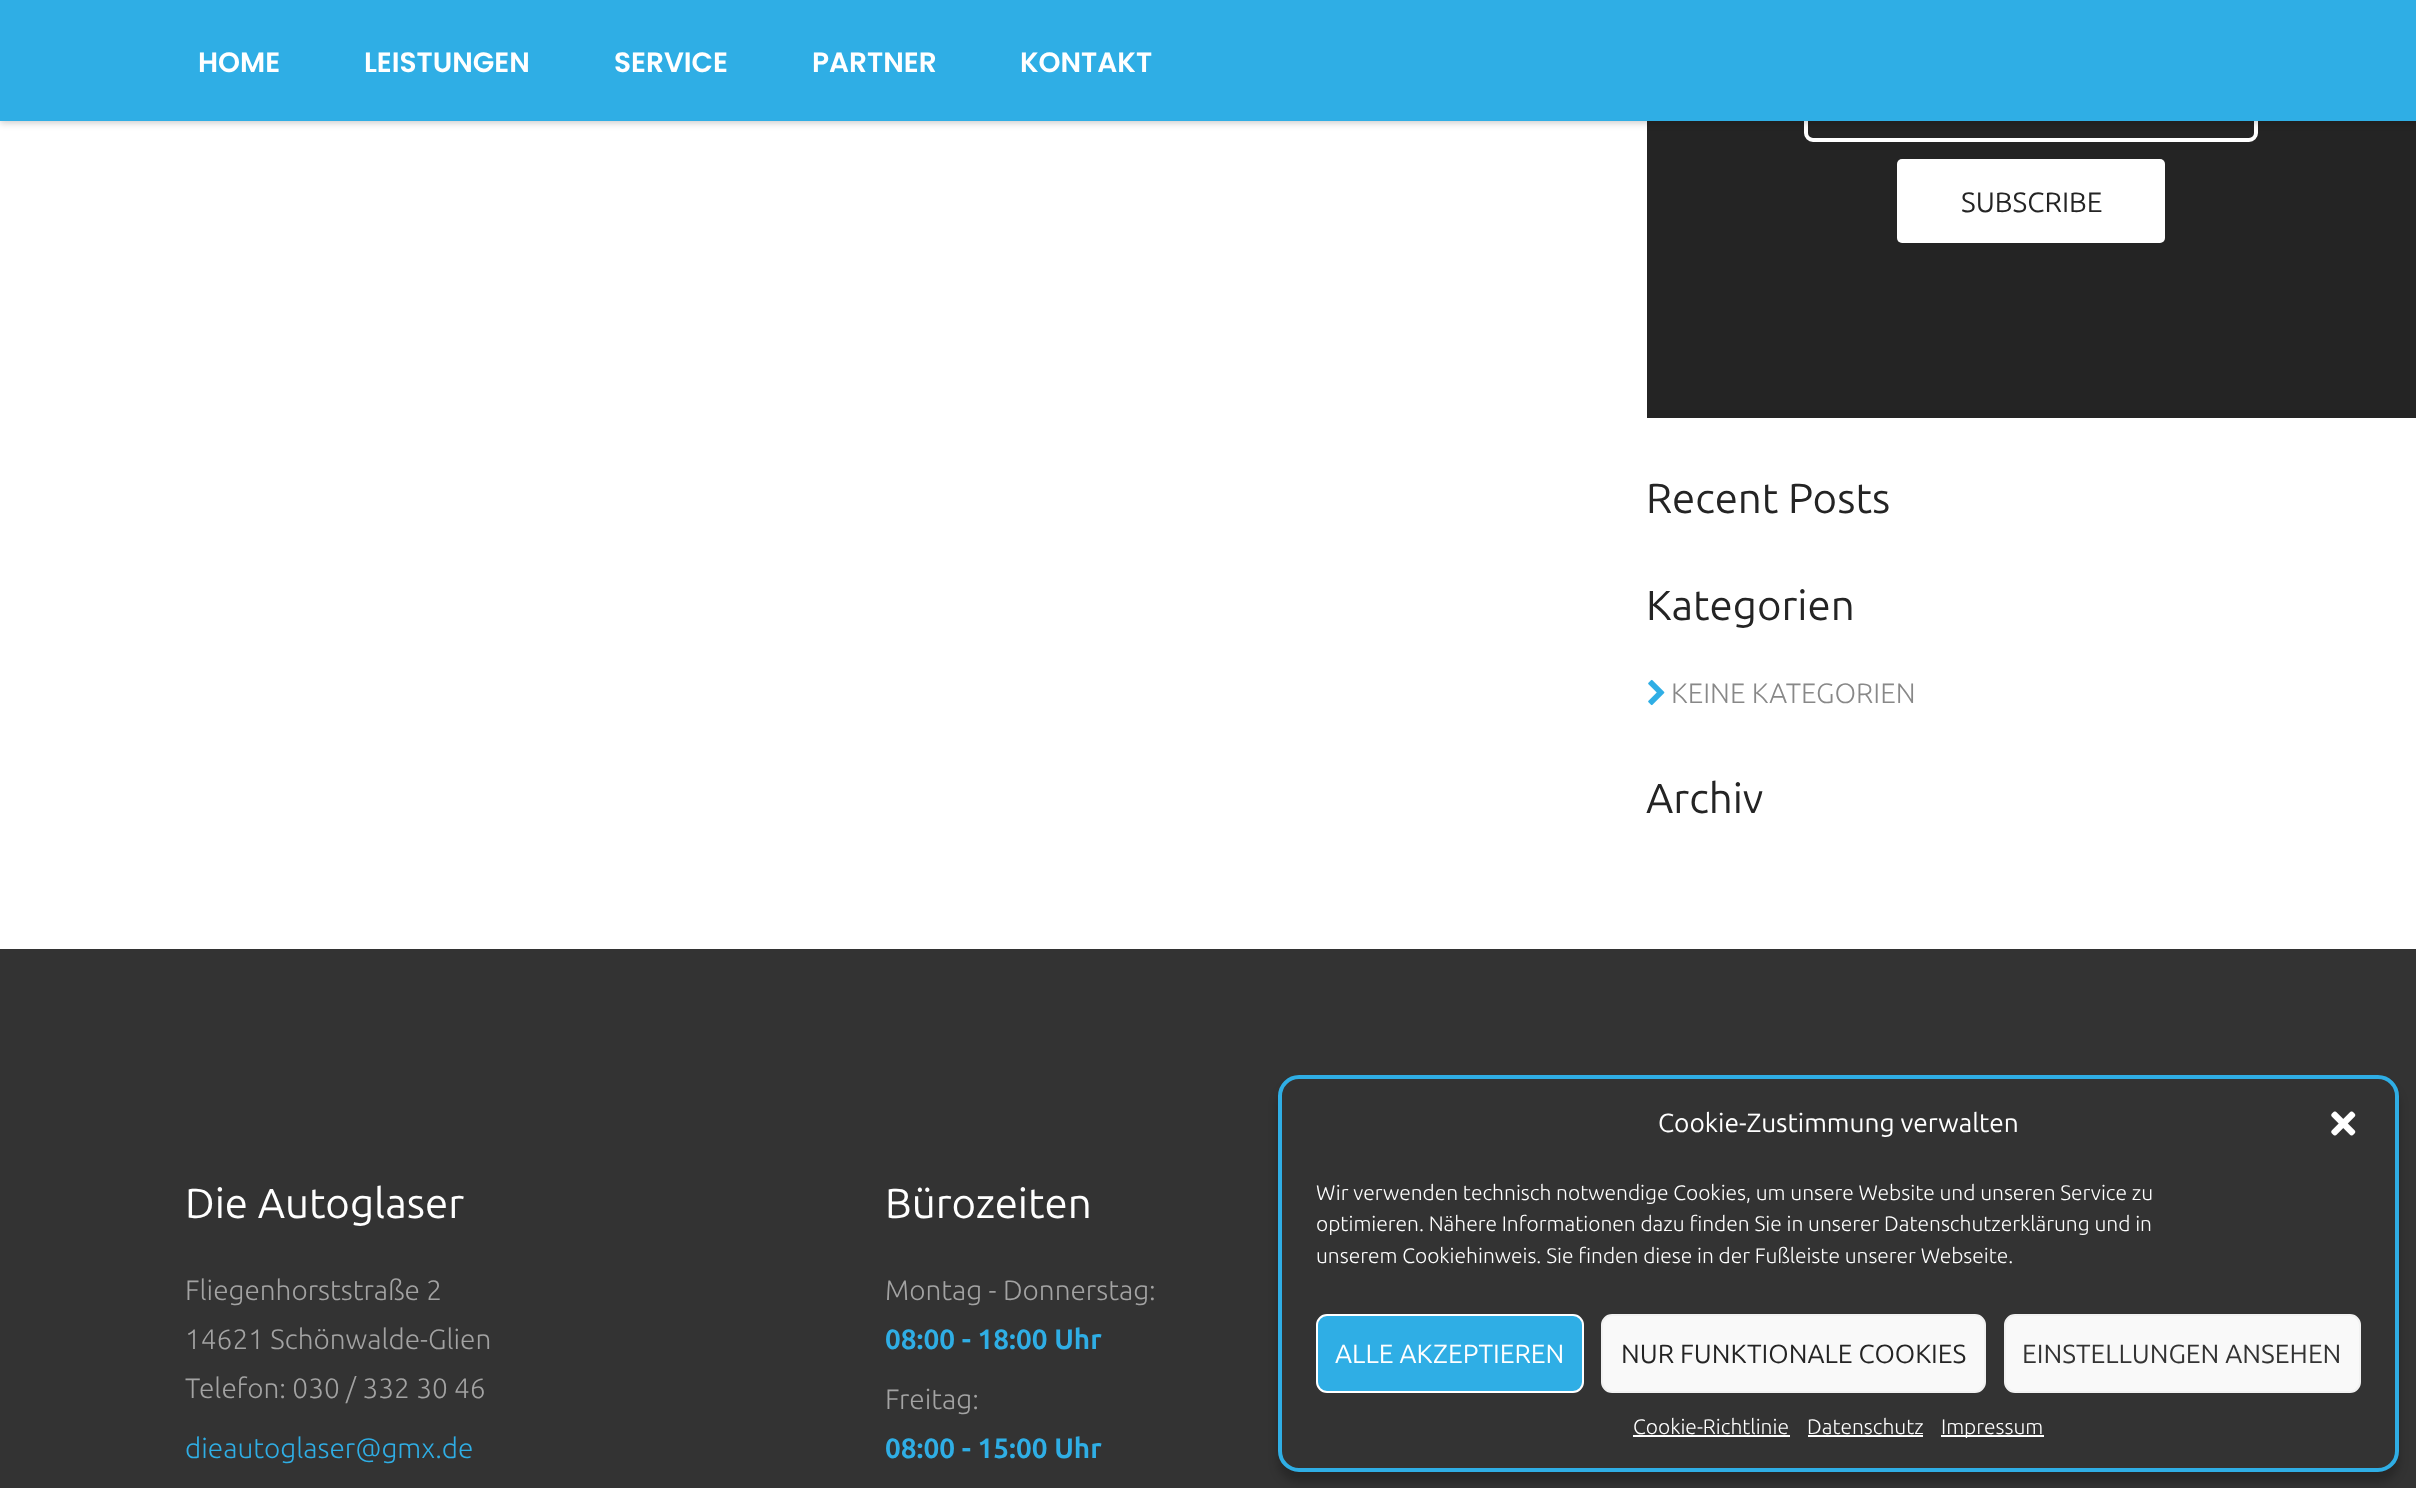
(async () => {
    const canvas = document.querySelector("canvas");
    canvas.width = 2416;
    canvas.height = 1488;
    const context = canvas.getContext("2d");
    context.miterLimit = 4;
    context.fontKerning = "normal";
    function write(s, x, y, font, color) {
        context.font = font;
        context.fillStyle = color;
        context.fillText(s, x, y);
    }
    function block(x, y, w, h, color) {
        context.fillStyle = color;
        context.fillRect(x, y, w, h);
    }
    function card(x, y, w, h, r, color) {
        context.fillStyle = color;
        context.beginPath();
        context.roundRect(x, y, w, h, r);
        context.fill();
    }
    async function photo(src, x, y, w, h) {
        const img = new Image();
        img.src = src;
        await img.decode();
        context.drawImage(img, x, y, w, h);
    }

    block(0, 0, 2416, 1488, "rgb(255, 255, 255)");
    block(1647, 121, 769, 297, "rgb(36, 36, 36)");
    context.beginPath();
    context.roundRect(1806, 35, 450, 105, 7);
    context.strokeStyle = "rgb(255, 255, 255)";
    context.lineWidth = 4;
    context.stroke();
    context.fillStyle = "rgba(0, 0, 0, 0.2)";
    context.filter = "blur(3.5px)";
    context.beginPath();
    context.rect(0, 2, 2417, 121);
    context.fill();
    context.filter = "none";
    block(0, 0, 2416, 121, "rgb(47, 174, 229)");
    write("HOME", 198, 72, "600 28px Poppins", "rgb(255, 255, 255)");
    write("LEISTUNGEN", 364, 72, "600 28px Poppins", "rgb(255, 255, 255)");
    write("SERVICE", 614, 72, "600 28px Poppins", "rgb(255, 255, 255)");
    write("PARTNER", 812, 72, "600 28px Poppins", "rgb(255, 255, 255)");
    write("KONTAKT", 1020, 72, "600 28px Poppins", "rgb(255, 255, 255)");
    card(1897, 159, 268, 84, 5, "rgb(255, 255, 255)");
    write("SUBSCRIBE", 1961, 212, "28px Ubuntu", "rgb(36, 36, 36)");
    write("Recent Posts", 1646, 513, "42px Ubuntu", "rgb(36, 36, 36)");
    write("Kategorien", 1646, 620, "42px Ubuntu", "rgb(36, 36, 36)");
    await photo("media/1.png", 1648, 679, 17, 27);
    write("KEINE KATEGORIEN", 1671, 703, "300 28px Ubuntu", "rgb(136, 136, 136)");
    write("Archiv", 1646, 813, "42px Ubuntu", "rgb(36, 36, 36)");
    block(0, 949, 2416, 539, "rgb(51, 51, 51)");
    write("Die Autoglaser", 185, 1218, "42px Ubuntu", "rgb(255, 255, 255)");
    write("Fliegenhorststraße 2", 185, 1300, "300 28px Ubuntu", "rgb(163, 163, 163)");
    write("14621 Schönwalde-Glien", 185, 1349, "300 28px Ubuntu", "rgb(163, 163, 163)");
    write("Telefon: 030 / 332 30 46", 185, 1398, "300 28px Ubuntu", "rgb(163, 163, 163)");
    write("dieautoglaser@gmx.de", 185, 1458, "300 28px Ubuntu", "rgb(47, 174, 229)");
    write("Bürozeiten", 885, 1218, "42px Ubuntu", "rgb(255, 255, 255)");
    write("Montag - Donnerstag:", 885, 1300, "300 28px Ubuntu", "rgb(163, 163, 163)");
    write("08:00 - 18:00 Uhr", 885, 1349, "bold 28px Ubuntu", "rgb(47, 174, 229)");
    write("Freitag:", 885, 1409, "300 28px Ubuntu", "rgb(163, 163, 163)");
    write("08:00 - 15:00 Uhr", 885, 1458, "bold 28px Ubuntu", "rgb(47, 174, 229)");
    context.fillStyle = "rgba(0, 0, 0, 0.23)";
    context.filter = "blur(5px)";
    context.beginPath();
    context.roundRect(1278, 1085, 1121, 397, 21);
    context.fill();
    context.filter = "none";
    context.fillStyle = "rgb(51, 51, 51)";
    context.beginPath();
    context.roundRect(1280, 1077, 1117, 393, 19);
    context.fill();
    context.strokeStyle = "rgb(47, 174, 229)";
    context.stroke();
    write("Cookie-Zustimmung verwalten", 1658, 1132, "26.25px Ubuntu", "rgb(255, 255, 255)");
    await photo("media/2.png", 2331, 1111, 25, 25);
    write("Wir verwenden technisch notwendige Cookies, um unsere Website und unseren Service zu", 1316, 1200, "300 21px Ubuntu", "rgb(255, 255, 255)");
    write("optimieren. Nähere Informationen dazu finden Sie in unserer Datenschutzerklärung und in", 1316, 1231, "300 21px Ubuntu", "rgb(255, 255, 255)");
    write("unserem Cookiehinweis. Sie finden diese in der Fußleiste unserer Webseite.", 1316, 1263, "300 21px Ubuntu", "rgb(255, 255, 255)");
    context.fillStyle = "rgb(47, 174, 229)";
    context.beginPath();
    context.roundRect(1317, 1315, 266, 77, 10);
    context.fill();
    context.strokeStyle = "rgb(255, 255, 255)";
    context.lineWidth = 2;
    context.stroke();
    write("ALLE AKZEPTIEREN", 1335, 1363, "26.25px Ubuntu", "rgb(255, 255, 255)");
    context.fillStyle = "rgb(249, 249, 249)";
    context.beginPath();
    context.roundRect(1602, 1315, 383, 77, 10);
    context.fill();
    context.strokeStyle = "rgb(242, 242, 242)";
    context.stroke();
    write("NUR FUNKTIONALE COOKIES", 1621, 1363, "26.25px Ubuntu", "rgb(36, 36, 36)");
    context.fillStyle = "rgb(249, 249, 249)";
    context.beginPath();
    context.roundRect(2005, 1315, 355, 77, 10);
    context.fill();
    context.stroke();
    write("EINSTELLUNGEN ANSEHEN", 2022, 1363, "26.25px Ubuntu", "rgb(51, 51, 51)");
    write("Cookie-Richtlinie", 1633, 1434, "300 21px Ubuntu", "rgb(255, 255, 255)");
    block(1633, 1435, 157, 2, "rgb(255, 255, 255)");
    write("Datenschutz", 1807, 1434, "300 21px Ubuntu", "rgb(255, 255, 255)");
    block(1808, 1435, 115, 2, "rgb(255, 255, 255)");
    block(1941, 1435, 103, 2, "rgb(255, 255, 255)");
    write("Impressum", 1941, 1434, "300 21px Ubuntu", "rgb(255, 255, 255)");
})();
